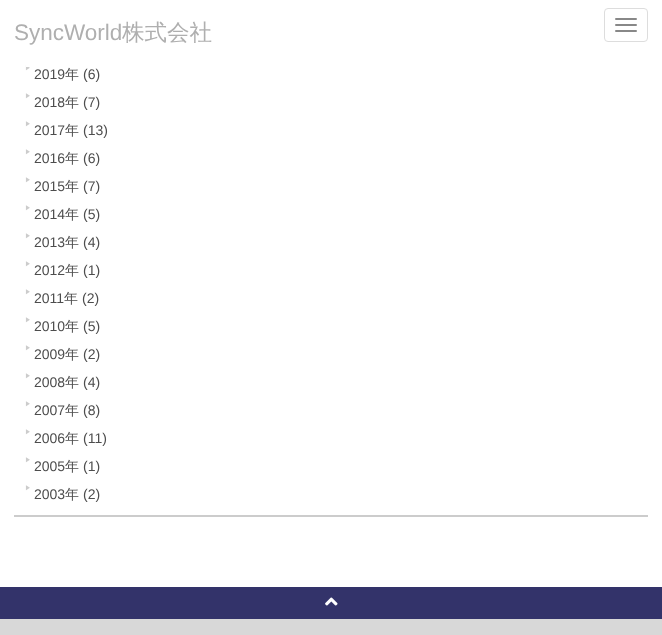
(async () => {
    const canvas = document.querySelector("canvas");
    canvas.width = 662;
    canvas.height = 635;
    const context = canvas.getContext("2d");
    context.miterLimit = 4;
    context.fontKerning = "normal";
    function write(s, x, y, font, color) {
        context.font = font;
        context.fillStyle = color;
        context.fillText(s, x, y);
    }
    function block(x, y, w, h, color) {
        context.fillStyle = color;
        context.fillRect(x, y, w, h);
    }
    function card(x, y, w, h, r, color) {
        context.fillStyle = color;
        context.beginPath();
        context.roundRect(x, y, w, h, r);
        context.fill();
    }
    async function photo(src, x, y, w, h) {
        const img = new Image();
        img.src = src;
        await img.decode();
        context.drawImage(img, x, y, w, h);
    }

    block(0, 0, 662, 635, "rgb(255, 255, 255)");
    write("▶", 25, 70, "500 6px WenQuanYi Zen Hei", "rgb(204, 204, 204)");
    block(26, 65, 3, 2, "rgb(255, 255, 255)");
    write("SyncWorld", 14, 40, "22.5px Liberation Sans", "rgb(175, 175, 175)");
    write("株式会社", 122, 40, "500 22.5px WenQuanYi Zen Hei", "rgb(175, 175, 175)");
    context.beginPath();
    context.roundRect(604.5, 8.5, 43, 33, 3.5);
    context.strokeStyle = "rgb(221, 221, 221)";
    context.stroke();
    card(615, 18, 22, 2, 1, "rgb(136, 136, 136)");
    card(615, 24, 22, 2, 1, "rgb(136, 136, 136)");
    card(615, 30, 22, 2, 1, "rgb(136, 136, 136)");
    block(14, 515, 634, 2, "rgb(204, 204, 204)");
    write("2019", 34, 79, "14px Liberation Sans", "rgb(77, 77, 77)");
    write("年", 65, 79, "500 14px WenQuanYi Zen Hei", "rgb(77, 77, 77)");
    write("(6)", 83, 79, "14px Liberation Sans", "rgb(77, 77, 77)");
    write("▶", 25, 98, "500 6px WenQuanYi Zen Hei", "rgb(204, 204, 204)");
    write("2018", 34, 107, "14px Liberation Sans", "rgb(77, 77, 77)");
    write("年", 65, 107, "500 14px WenQuanYi Zen Hei", "rgb(77, 77, 77)");
    write("(7)", 83, 107, "14px Liberation Sans", "rgb(77, 77, 77)");
    write("▶", 25, 126, "500 6px WenQuanYi Zen Hei", "rgb(204, 204, 204)");
    write("2017", 34, 135, "14px Liberation Sans", "rgb(77, 77, 77)");
    write("年", 65, 135, "500 14px WenQuanYi Zen Hei", "rgb(77, 77, 77)");
    write("(13)", 83, 135, "14px Liberation Sans", "rgb(77, 77, 77)");
    write("▶", 25, 154, "500 6px WenQuanYi Zen Hei", "rgb(204, 204, 204)");
    write("2016", 34, 163, "14px Liberation Sans", "rgb(77, 77, 77)");
    write("年", 65, 163, "500 14px WenQuanYi Zen Hei", "rgb(77, 77, 77)");
    write("(6)", 83, 163, "14px Liberation Sans", "rgb(77, 77, 77)");
    write("▶", 25, 182, "500 6px WenQuanYi Zen Hei", "rgb(204, 204, 204)");
    write("2015", 34, 191, "14px Liberation Sans", "rgb(77, 77, 77)");
    write("年", 65, 191, "500 14px WenQuanYi Zen Hei", "rgb(77, 77, 77)");
    write("(7)", 83, 191, "14px Liberation Sans", "rgb(77, 77, 77)");
    write("▶", 25, 210, "500 6px WenQuanYi Zen Hei", "rgb(204, 204, 204)");
    write("2014", 34, 219, "14px Liberation Sans", "rgb(77, 77, 77)");
    write("年", 65, 219, "500 14px WenQuanYi Zen Hei", "rgb(77, 77, 77)");
    write("(5)", 83, 219, "14px Liberation Sans", "rgb(77, 77, 77)");
    write("▶", 25, 238, "500 6px WenQuanYi Zen Hei", "rgb(204, 204, 204)");
    write("2013", 34, 247, "14px Liberation Sans", "rgb(77, 77, 77)");
    write("年", 65, 247, "500 14px WenQuanYi Zen Hei", "rgb(77, 77, 77)");
    write("(4)", 83, 247, "14px Liberation Sans", "rgb(77, 77, 77)");
    write("▶", 25, 266, "500 6px WenQuanYi Zen Hei", "rgb(204, 204, 204)");
    write("2012", 34, 275, "14px Liberation Sans", "rgb(77, 77, 77)");
    write("年", 65, 275, "500 14px WenQuanYi Zen Hei", "rgb(77, 77, 77)");
    write("(1)", 83, 275, "14px Liberation Sans", "rgb(77, 77, 77)");
    write("▶", 25, 294, "500 6px WenQuanYi Zen Hei", "rgb(204, 204, 204)");
    write("2011", 34, 303, "14px Liberation Sans", "rgb(77, 77, 77)");
    write("年", 64, 303, "500 14px WenQuanYi Zen Hei", "rgb(77, 77, 77)");
    write("(2)", 82, 303, "14px Liberation Sans", "rgb(77, 77, 77)");
    write("▶", 25, 322, "500 6px WenQuanYi Zen Hei", "rgb(204, 204, 204)");
    write("2010", 34, 331, "14px Liberation Sans", "rgb(77, 77, 77)");
    write("年", 65, 331, "500 14px WenQuanYi Zen Hei", "rgb(77, 77, 77)");
    write("(5)", 83, 331, "14px Liberation Sans", "rgb(77, 77, 77)");
    write("▶", 25, 350, "500 6px WenQuanYi Zen Hei", "rgb(204, 204, 204)");
    write("2009", 34, 359, "14px Liberation Sans", "rgb(77, 77, 77)");
    write("年", 65, 359, "500 14px WenQuanYi Zen Hei", "rgb(77, 77, 77)");
    write("(2)", 83, 359, "14px Liberation Sans", "rgb(77, 77, 77)");
    write("▶", 25, 378, "500 6px WenQuanYi Zen Hei", "rgb(204, 204, 204)");
    write("2008", 34, 387, "14px Liberation Sans", "rgb(77, 77, 77)");
    write("年", 65, 387, "500 14px WenQuanYi Zen Hei", "rgb(77, 77, 77)");
    write("(4)", 83, 387, "14px Liberation Sans", "rgb(77, 77, 77)");
    write("▶", 25, 406, "500 6px WenQuanYi Zen Hei", "rgb(204, 204, 204)");
    write("2007", 34, 415, "14px Liberation Sans", "rgb(77, 77, 77)");
    write("年", 65, 415, "500 14px WenQuanYi Zen Hei", "rgb(77, 77, 77)");
    write("(8)", 83, 415, "14px Liberation Sans", "rgb(77, 77, 77)");
    write("▶", 25, 434, "500 6px WenQuanYi Zen Hei", "rgb(204, 204, 204)");
    write("2006", 34, 443, "14px Liberation Sans", "rgb(77, 77, 77)");
    write("年", 65, 443, "500 14px WenQuanYi Zen Hei", "rgb(77, 77, 77)");
    write("(11)", 83, 443, "14px Liberation Sans", "rgb(77, 77, 77)");
    write("▶", 25, 462, "500 6px WenQuanYi Zen Hei", "rgb(204, 204, 204)");
    write("2005", 34, 471, "14px Liberation Sans", "rgb(77, 77, 77)");
    write("年", 65, 471, "500 14px WenQuanYi Zen Hei", "rgb(77, 77, 77)");
    write("(1)", 83, 471, "14px Liberation Sans", "rgb(77, 77, 77)");
    write("▶", 25, 490, "500 6px WenQuanYi Zen Hei", "rgb(204, 204, 204)");
    write("2003", 34, 499, "14px Liberation Sans", "rgb(77, 77, 77)");
    write("年", 65, 499, "500 14px WenQuanYi Zen Hei", "rgb(77, 77, 77)");
    write("(2)", 83, 499, "14px Liberation Sans", "rgb(77, 77, 77)");
    block(0, 587, 662, 32, "rgb(51, 51, 106)");
    await photo("media/1.png", 325, 597, 13, 9);
    block(0, 619, 662, 16, "rgb(216, 216, 216)");
})();
